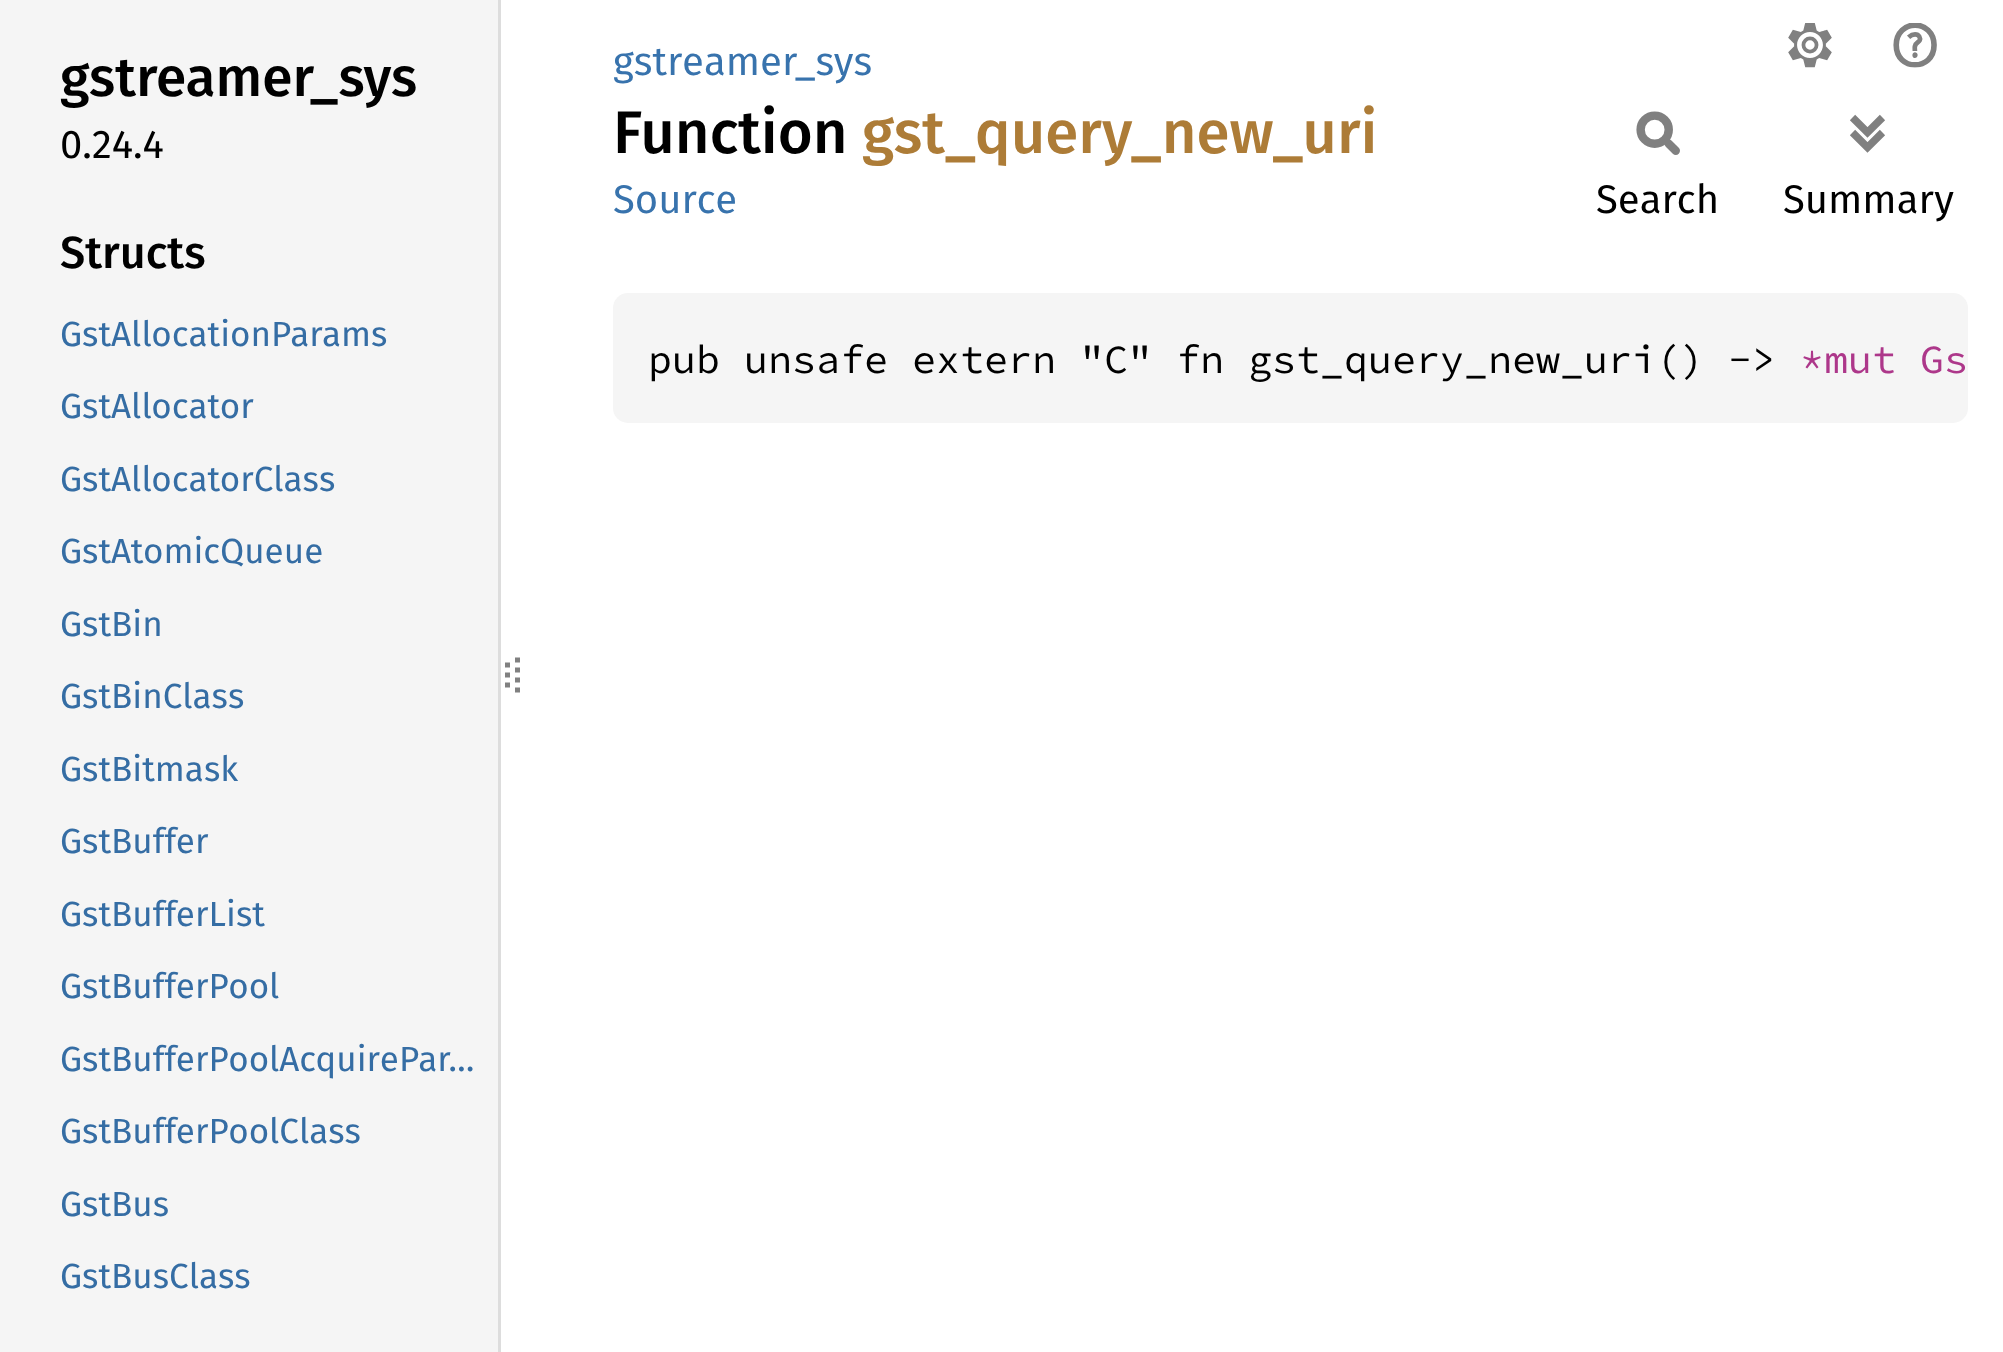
(async () => {
    const canvas = document.querySelector("canvas");
    canvas.width = 2003;
    canvas.height = 1352;
    const context = canvas.getContext("2d");
    context.miterLimit = 4;
    context.fontKerning = "normal";
    function write(s, x, y, font, color) {
        context.font = font;
        context.fillStyle = color;
        context.fillText(s, x, y);
    }
    function block(x, y, w, h, color) {
        context.fillStyle = color;
        context.fillRect(x, y, w, h);
    }
    function card(x, y, w, h, r, color) {
        context.fillStyle = color;
        context.beginPath();
        context.roundRect(x, y, w, h, r);
        context.fill();
    }
    async function photo(src, x, y, w, h) {
        const img = new Image();
        img.src = src;
        await img.decode();
        context.drawImage(img, x, y, w, h);
    }

    block(0, 0, 2003, 1352, "rgb(255, 255, 255)");
    block(0, 0, 498, 1352, "rgb(245, 245, 245)");
    block(498, 0, 3, 1352, "rgb(221, 221, 221)");
    write("gstreamer_sys", 60, 96, "500 55px Fira Sans", "rgb(0, 0, 0)");
    write("0.24.4", 60, 158, "40px Fira Sans", "rgb(0, 0, 0)");
    write("Structs", 60, 268, "500 45px Fira Sans", "rgb(0, 0, 0)");
    write("GstAllocationParams", 60, 346, "35px Fira Sans", "rgb(53, 109, 164)");
    write("GstAllocator", 60, 418, "35px Fira Sans", "rgb(53, 109, 164)");
    write("GstAllocatorClass", 60, 491, "35px Fira Sans", "rgb(53, 109, 164)");
    write("GstAtomicQueue", 60, 563, "35px Fira Sans", "rgb(53, 109, 164)");
    write("GstBin", 60, 636, "35px Fira Sans", "rgb(53, 109, 164)");
    write("GstBinClass", 60, 708, "35px Fira Sans", "rgb(53, 109, 164)");
    write("GstBitmask", 60, 781, "35px Fira Sans", "rgb(53, 109, 164)");
    write("GstBuffer", 60, 853, "35px Fira Sans", "rgb(53, 109, 164)");
    write("GstBufferList", 60, 926, "35px Fira Sans", "rgb(53, 109, 164)");
    write("GstBufferPool", 60, 998, "35px Fira Sans", "rgb(53, 109, 164)");
    write("GstBufferPoolAcquirePar…", 60, 1071, "35px Fira Sans", "rgb(53, 109, 164)");
    write("GstBufferPoolClass", 60, 1143, "35px Fira Sans", "rgb(53, 109, 164)");
    write("GstBus", 60, 1216, "35px Fira Sans", "rgb(53, 109, 164)");
    write("GstBusClass", 60, 1288, "35px Fira Sans", "rgb(53, 109, 164)");
    context.beginPath();
    context.moveTo(507.5, 662.5);
    context.lineTo(507.5, 667.5);
    context.moveTo(507.5, 672.5);
    context.lineTo(507.5, 677.5);
    context.moveTo(507.5, 682.5);
    context.lineTo(507.5, 687.5);
    context.strokeStyle = "rgb(128, 128, 128)";
    context.lineWidth = 5;
    context.stroke();
    context.beginPath();
    context.moveTo(517.5, 657.5);
    context.lineTo(517.5, 697.5);
    context.setLineDash([5, 5]);
    context.stroke();
    write("gstreamer_sys", 613, 75, "40px Fira Sans", "rgb(56, 115, 173)");
    write("Function", 613, 153, "500 60px Fira Sans", "rgb(0, 0, 0)");
    write("gst_query_new_uri", 862, 153, "500 60px Fira Sans", "rgb(173, 124, 55)");
    write("Source", 613, 213, "40px Fira Sans", "rgb(56, 115, 173)");
    await photo("media/1.png", 1788, 23, 44, 45);
    await photo("media/2.png", 1893, 23, 44, 45);
    await photo("media/3.png", 1636, 111, 44, 44);
    write("Search", 1596, 213, "40px Fira Sans", "rgb(0, 0, 0)");
    await photo("media/4.png", 1850, 114, 35, 39);
    write("Summary", 1783, 213, "40px Fira Sans", "rgb(0, 0, 0)");
    card(613, 293, 1355, 130, 15, "rgb(245, 245, 245)");
    write("pub unsafe extern \"C\" fn gst_query_new_uri() ->", 648, 373, "40px Source Code Pro", "rgb(0, 0, 0)");
    write("*mut Gs", 1800, 373, "40px Source Code Pro", "rgb(173, 55, 138)");
})();
